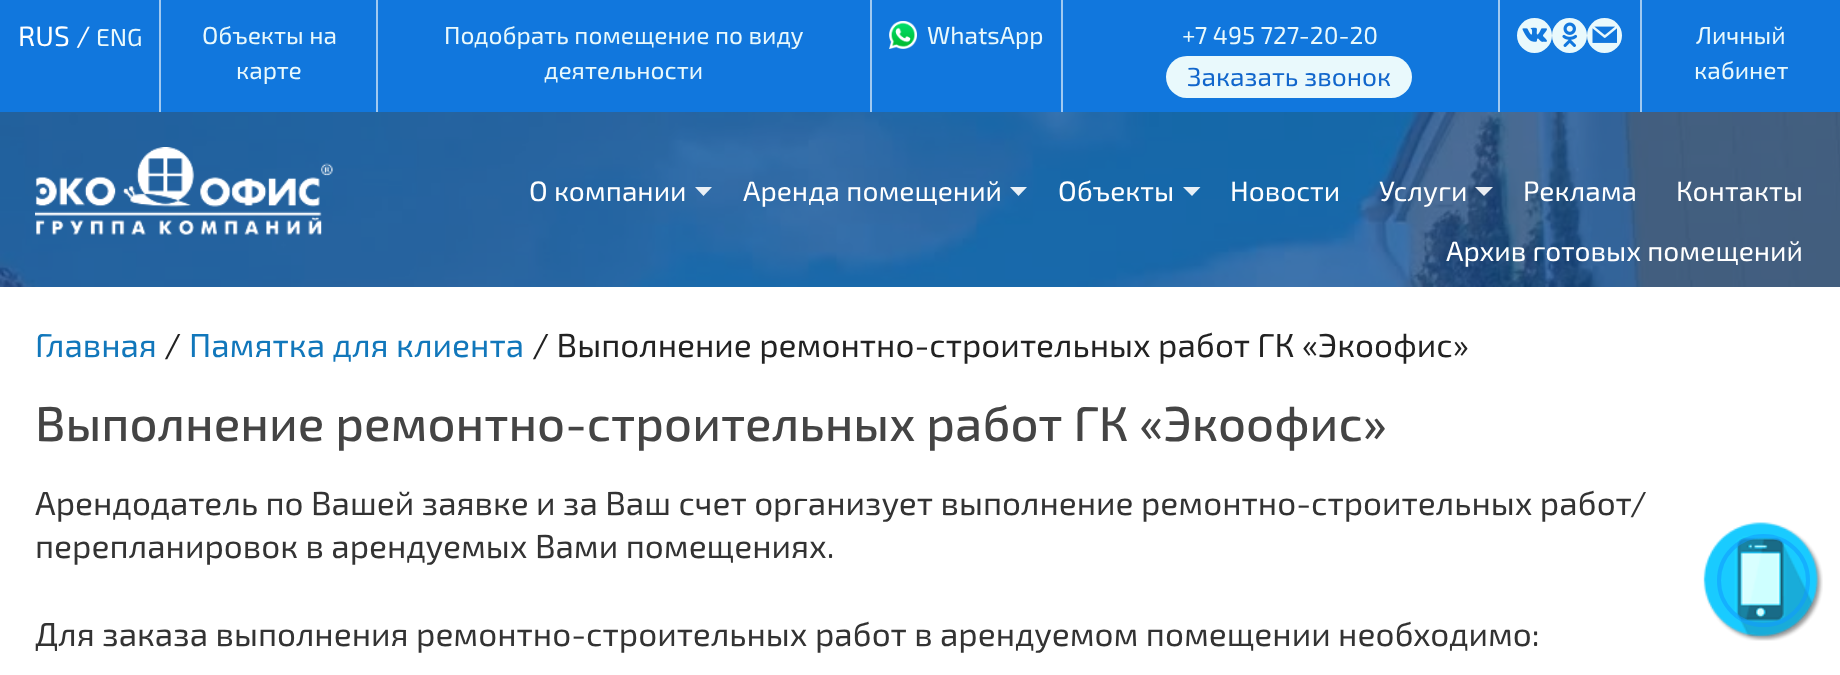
(async () => {
    const canvas = document.querySelector("canvas");
    canvas.width = 1840;
    canvas.height = 675;
    const context = canvas.getContext("2d");
    context.miterLimit = 4;
    context.fontKerning = "normal";
    function write(s, x, y, font, color) {
        context.font = font;
        context.fillStyle = color;
        context.fillText(s, x, y);
    }
    function block(x, y, w, h, color) {
        context.fillStyle = color;
        context.fillRect(x, y, w, h);
    }
    function card(x, y, w, h, r, color) {
        context.fillStyle = color;
        context.beginPath();
        context.roundRect(x, y, w, h, r);
        context.fill();
    }
    async function photo(src, x, y, w, h) {
        const img = new Image();
        img.src = src;
        await img.decode();
        context.drawImage(img, x, y, w, h);
    }

    block(0, 0, 1840, 675, "rgb(255, 255, 255)");
    block(0, 0, 1840, 112, "rgb(17, 119, 221)");
    block(159, 0, 2, 112, "rgb(160, 201, 241)");
    write("RUS /", 18, 46, "28px 'Exo 2'", "rgb(255, 255, 255)");
    write("ENG", 96, 46, "24.5px 'Exo 2'", "rgb(233, 249, 252)");
    block(376, 0, 2, 112, "rgb(160, 201, 241)");
    write("Объекты на", 202, 44, "24.5px 'Exo 2'", "rgb(233, 249, 252)");
    write("карте", 236, 79, "24.5px 'Exo 2'", "rgb(233, 249, 252)");
    block(870, 0, 2, 112, "rgb(160, 201, 241)");
    write("Подобрать помещение по виду", 444, 44, "24.5px 'Exo 2'", "rgb(233, 249, 252)");
    write("деятельности", 544, 79, "24.5px 'Exo 2'", "rgb(233, 249, 252)");
    block(1061, 0, 2, 112, "rgb(160, 201, 241)");
    await photo("media/1.png", 889, 21, 28, 28);
    write("WhatsApp", 927, 44, "24.5px 'Exo 2'", "rgb(233, 249, 252)");
    block(1498, 0, 2, 112, "rgb(160, 201, 241)");
    write("+7 495 727-20-20", 1182, 44, "24.5px 'Exo 2'", "rgb(233, 249, 252)");
    card(1166, 56, 246, 42, 21, "rgb(233, 249, 252)");
    write("Заказать звонок", 1187, 86, "26.25px 'Exo 2'", "rgb(17, 102, 204)");
    block(1640, 0, 2, 112, "rgb(160, 201, 241)");
    context.fillStyle = "rgb(233, 249, 252)";
    context.beginPath();
    context.arc(1534.5, 35.5, 17.5, 0, Math.PI * 2);
    context.fill();
    await photo("media/2.png", 1522, 27, 25, 15);
    context.beginPath();
    context.arc(1569.5, 35.5, 17.5, 0, Math.PI * 2);
    context.fill();
    await photo("media/3.png", 1562, 22, 16, 25);
    context.beginPath();
    context.arc(1604.5, 35.5, 17.5, 0, Math.PI * 2);
    context.fill();
    await photo("media/4.png", 1592, 26, 25, 17);
    write("Личный", 1696, 44, "24.5px 'Exo 2'", "rgb(233, 249, 252)");
    write("кабинет", 1694, 79, "24.5px 'Exo 2'", "rgb(233, 249, 252)");
    await photo("media/5.png", 0, 112, 1840, 175);
    write("О компании", 529, 201, "28px 'Exo 2'", "rgb(255, 255, 255)");
    context.fillStyle = "rgb(234, 240, 246)";
    context.beginPath();
    context.moveTo(695, 187);
    context.lineTo(712, 187);
    context.lineTo(703.5, 196);
    context.closePath();
    context.fill();
    write("Аренда помещений", 743, 201, "28px 'Exo 2'", "rgb(255, 255, 255)");
    context.fillStyle = "rgba(255, 255, 255, 0.9)";
    context.beginPath();
    context.moveTo(1010, 187);
    context.lineTo(1027, 187);
    context.lineTo(1018.5, 196);
    context.closePath();
    context.fill();
    write("Объекты", 1058, 201, "28px 'Exo 2'", "rgb(255, 255, 255)");
    context.fillStyle = "rgb(232, 240, 246)";
    context.beginPath();
    context.moveTo(1183, 187);
    context.lineTo(1200.5, 187);
    context.lineTo(1192, 196);
    context.closePath();
    context.fill();
    write("Новости", 1230, 201, "28px 'Exo 2'", "rgb(255, 255, 255)");
    write("Услуги", 1379, 201, "28px 'Exo 2'", "rgb(255, 255, 255)");
    context.fillStyle = "rgba(255, 255, 255, 0.9)";
    context.beginPath();
    context.moveTo(1475, 187);
    context.lineTo(1493, 187);
    context.lineTo(1484, 196);
    context.closePath();
    context.fill();
    write("Реклама", 1523, 201, "28px 'Exo 2'", "rgb(255, 255, 255)");
    write("Контакты", 1676, 201, "28px 'Exo 2'", "rgb(255, 255, 255)");
    write("Архив готовых помещений", 1446, 261, "28px 'Exo 2'", "rgb(255, 255, 255)");
    await photo("media/6.png", 35, 147, 298, 88);
    write("Главная", 35, 357, "33.25px 'Exo 2'", "rgb(17, 119, 187)");
    write("/", 164, 357, "33.25px 'Exo 2'", "rgb(34, 34, 34)");
    write("Памятка для клиента", 189, 357, "33.25px 'Exo 2'", "rgb(17, 119, 187)");
    write("/ Выполнение ремонтно-строительных работ ГК «Экоофис»", 532, 357, "33.25px 'Exo 2'", "rgb(34, 34, 34)");
    write("Выполнение ремонтно-строительных работ ГК «Экоофис»", 35, 441, "500 49px 'Exo 2'", "rgb(68, 68, 68)");
    write("Арендодатель по Вашей заявке и за Ваш счет организует выполнение ремонтно-строительных работ/", 35, 515, "33.25px 'Exo 2'", "rgb(51, 51, 51)");
    write("перепланировок в арендуемых Вами помещениях.", 35, 558, "33.25px 'Exo 2'", "rgb(51, 51, 51)");
    write("Для заказа выполнения ремонтно-строительных работ в арендуемом помещении необходимо:", 35, 646, "33.25px 'Exo 2'", "rgb(51, 51, 51)");
    await photo("media/7.png", 1703, 522, 120, 119);
    context.beginPath();
    context.arc(1763.5, 580.5, 44.5, 0, Math.PI * 2);
    context.strokeStyle = "rgba(17, 153, 255, 0.54)";
    context.lineWidth = 4;
    context.stroke();
})();
